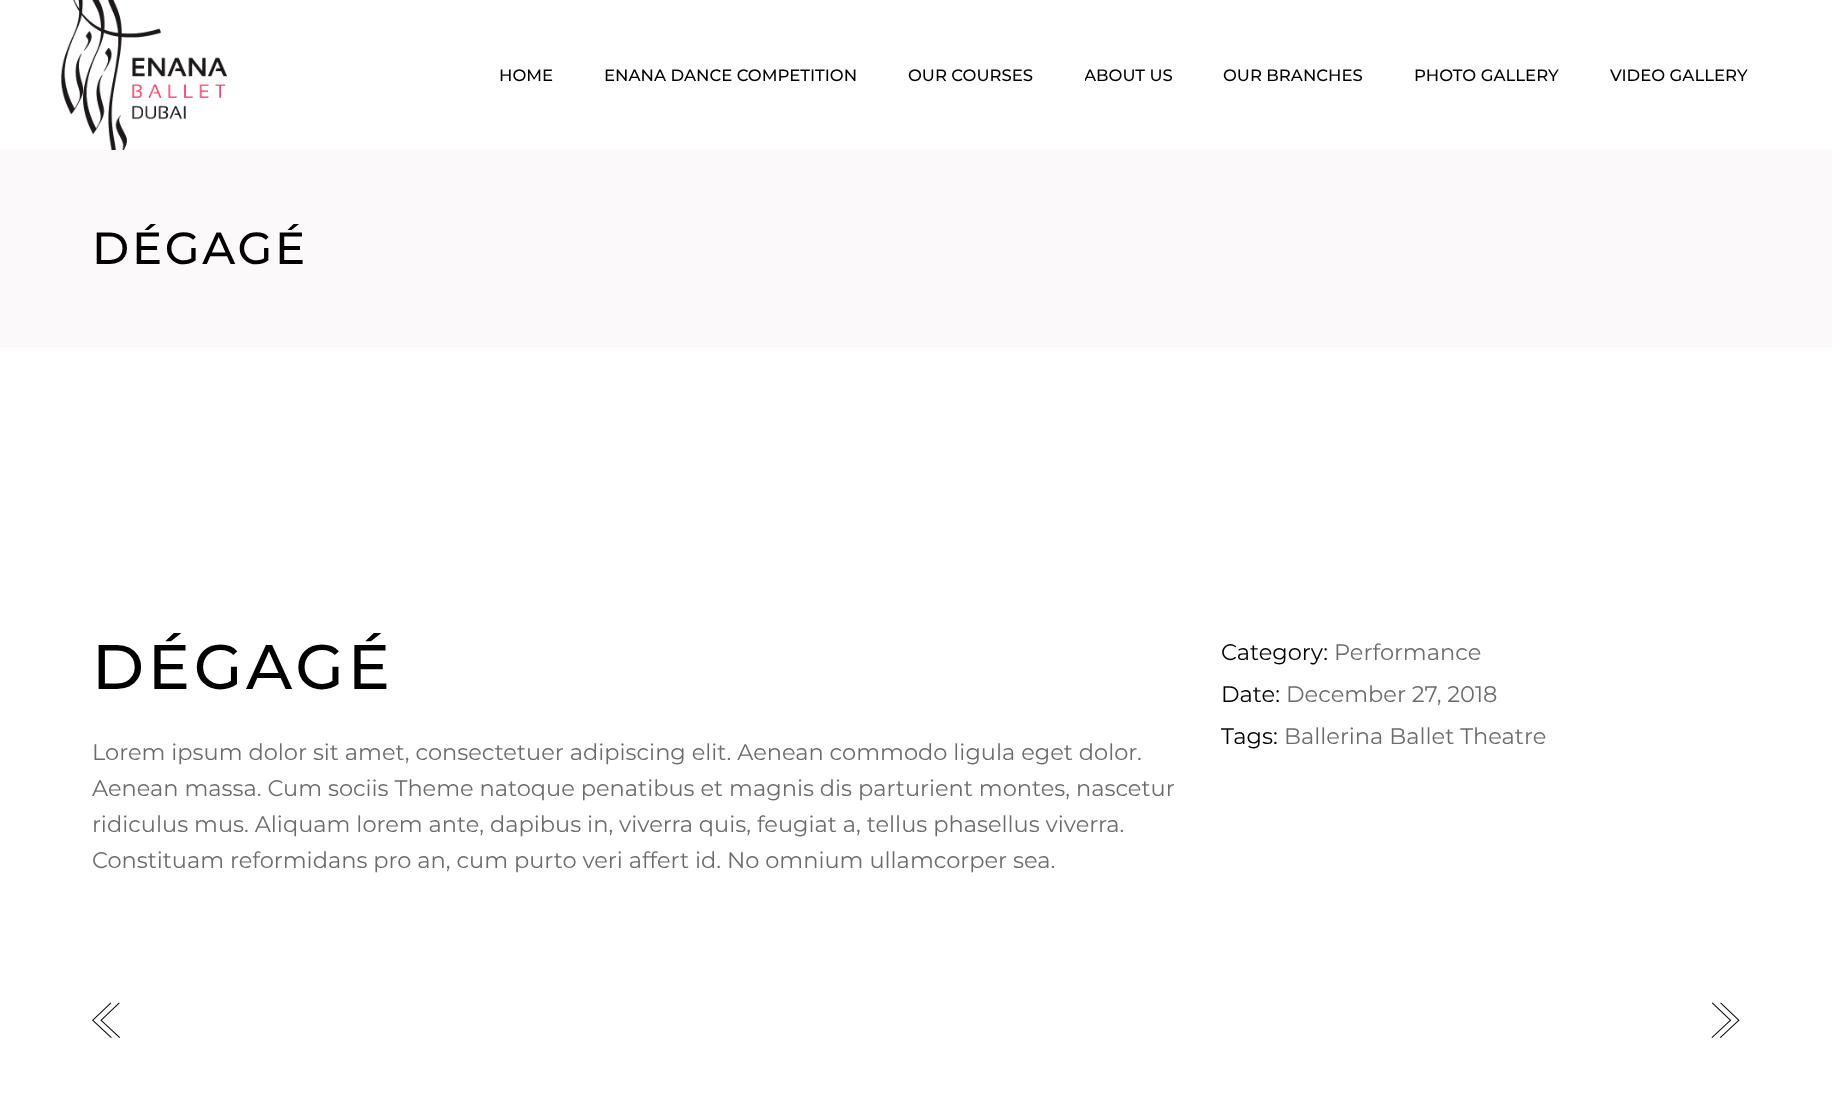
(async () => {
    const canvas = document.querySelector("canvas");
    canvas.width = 1832;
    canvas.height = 1097;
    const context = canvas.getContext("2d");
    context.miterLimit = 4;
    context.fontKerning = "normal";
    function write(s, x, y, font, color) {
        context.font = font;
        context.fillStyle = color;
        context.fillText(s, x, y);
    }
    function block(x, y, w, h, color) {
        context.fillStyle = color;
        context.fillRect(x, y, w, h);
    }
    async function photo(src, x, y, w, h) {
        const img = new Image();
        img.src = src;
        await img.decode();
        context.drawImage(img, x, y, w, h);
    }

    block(0, 0, 1832, 1097, "rgb(255, 255, 255)");
    await photo("media/1.png", 60, 0, 167, 150);
    write("HOME", 499, 81, "500 16.5px Montserrat", "rgb(0, 0, 0)");
    write("ENANA DANCE COMPETITION", 604, 81, "500 16.5px Montserrat", "rgb(0, 0, 0)");
    write("OUR COURSES", 908, 81, "500 16.5px Montserrat", "rgb(0, 0, 0)");
    context.save();
    context.beginPath();
    context.rect(1085, 60, 88, 32);
    context.clip();
    write("ABOUT US", 1084, 81, "500 16.5px Montserrat", "rgb(0, 0, 0)");
    context.restore();
    write("OUR BRANCHES", 1223, 81, "500 16.5px Montserrat", "rgb(0, 0, 0)");
    write("PHOTO GALLERY", 1414, 81, "500 16.5px Montserrat", "rgb(0, 0, 0)");
    write("VIDEO GALLERY", 1610, 81, "500 16.5px Montserrat", "rgb(0, 0, 0)");
    block(0, 150, 1832, 198, "rgb(251, 249, 249)");
    context.letterSpacing = "2.75px";
    write("DÉGAGÉ", 92, 264, "500 45px Montserrat", "rgb(0, 0, 0)");
    context.letterSpacing = "3.75px";
    write("DÉGAGÉ", 92, 689, "500 63px Montserrat", "rgb(0, 0, 0)");
    context.letterSpacing = "0px";
    write("Lorem ipsum dolor sit amet, consectetuer adipiscing elit. Aenean commodo ligula eget dolor.", 92, 760, "22.5px Montserrat", "rgb(108, 108, 108)");
    write("Aenean massa. Cum sociis Theme natoque penatibus et magnis dis parturient montes, nascetur", 92, 796, "22.5px Montserrat", "rgb(108, 108, 108)");
    write("ridiculus mus. Aliquam lorem ante, dapibus in, viverra quis, feugiat a, tellus phasellus viverra.", 92, 832, "22.5px Montserrat", "rgb(108, 108, 108)");
    write("Constituam reformidans pro an, cum purto veri affert id. No omnium ullamcorper sea.", 92, 868, "22.5px Montserrat", "rgb(108, 108, 108)");
    write("Category:", 1221, 660, "22.5px Montserrat", "rgb(0, 0, 0)");
    write("Performance", 1334, 660, "22.5px Montserrat", "rgb(108, 108, 108)");
    write("Date:", 1221, 702, "22.5px Montserrat", "rgb(0, 0, 0)");
    write("December 27, 2018", 1286, 702, "22.5px Montserrat", "rgb(108, 108, 108)");
    write("Tags:", 1221, 744, "22.5px Montserrat", "rgb(0, 0, 0)");
    write("Ballerina Ballet Theatre", 1284, 744, "22.5px Montserrat", "rgb(108, 108, 108)");
    await photo("media/2.png", 92, 1002, 28, 36);
    await photo("media/3.png", 1711, 1002, 29, 36);
})();
